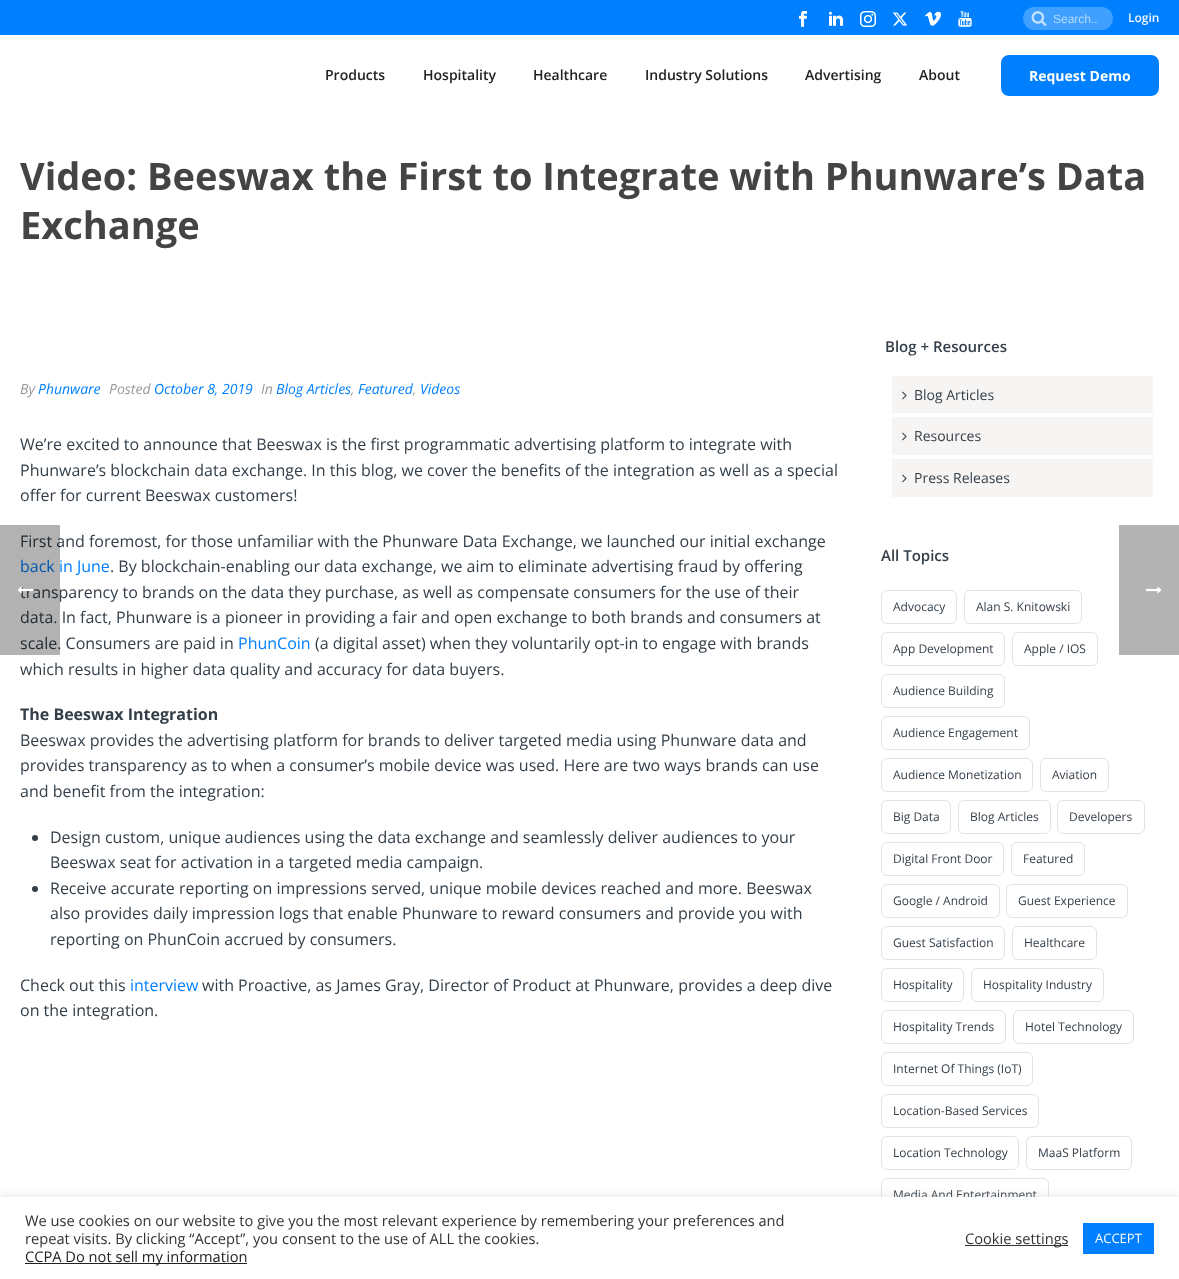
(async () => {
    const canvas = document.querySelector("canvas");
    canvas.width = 1179;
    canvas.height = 1279;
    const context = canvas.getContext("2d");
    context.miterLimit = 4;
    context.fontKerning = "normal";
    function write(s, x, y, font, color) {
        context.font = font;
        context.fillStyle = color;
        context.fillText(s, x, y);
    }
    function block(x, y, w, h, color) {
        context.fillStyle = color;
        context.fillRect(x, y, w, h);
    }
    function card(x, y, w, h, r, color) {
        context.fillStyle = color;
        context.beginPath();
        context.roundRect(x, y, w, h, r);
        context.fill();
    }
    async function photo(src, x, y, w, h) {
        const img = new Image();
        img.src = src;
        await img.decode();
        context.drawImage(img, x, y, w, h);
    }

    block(0, 0, 1179, 1279, "rgb(255, 255, 255)");
    block(0, 0, 1179, 35, "rgb(0, 128, 255)");
    await photo("media/1.png", 799, 11, 8, 16);
    await photo("media/2.png", 829, 11, 15, 15);
    await photo("media/3.png", 860, 11, 16, 16);
    await photo("media/4.png", 893, 12, 15, 14);
    await photo("media/5.png", 925, 11, 16, 15);
    await photo("media/6.png", 958, 11, 14, 16);
    context.save();
    context.beginPath();
    context.roundRect(1023, 0, 90, 35, 17.5);
    context.clip();
    card(1023, 7, 90, 23, 11.5, "rgb(64, 160, 255)");
    context.restore();
    await photo("media/7.png", 1031, 11, 16, 15);
    write("Search..", 1053, 23, "12px Liberation Sans", "rgb(179, 217, 255)");
    write("Login", 1128, 22, "600 12px Open Sans", "rgb(239, 244, 255)");
    write("Products", 325, 80, "600 14px Open Sans", "rgb(34, 34, 34)");
    write("Hospitality", 423, 80, "600 14px Open Sans", "rgb(34, 34, 34)");
    write("Healthcare", 533, 80, "600 14px Open Sans", "rgb(34, 34, 34)");
    write("Industry Solutions", 645, 80, "600 14px Open Sans", "rgb(34, 34, 34)");
    write("Advertising", 805, 80, "600 14px Open Sans", "rgb(34, 34, 34)");
    write("About", 919, 80, "600 14px Open Sans", "rgb(34, 34, 34)");
    context.fillStyle = "rgb(0, 128, 255)";
    context.beginPath();
    context.roundRect(1002, 56, 156, 39, 7);
    context.fill();
    context.strokeStyle = "rgb(0, 128, 255)";
    context.lineWidth = 2;
    context.stroke();
    write("Request Demo", 1029, 81, "bold 14px Open Sans", "rgb(255, 255, 255)");
    write("Video: Beeswax the First to Integrate with Phunware’s Data", 20, 190, "bold 38px Open Sans", "rgb(68, 68, 68)");
    write("Exchange", 20, 239, "bold 38px Open Sans", "rgb(68, 68, 68)");
    write("By", 20, 394, "italic 14px Open Sans", "rgb(153, 153, 153)");
    write("Phunware", 38, 394, "italic 14px Open Sans", "rgb(0, 128, 255)");
    write("Posted", 109, 394, "italic 14px Open Sans", "rgb(153, 153, 153)");
    write("October 8, 2019", 154, 394, "italic 14px Open Sans", "rgb(0, 128, 255)");
    write("In", 261, 394, "italic 14px Open Sans", "rgb(153, 153, 153)");
    write("Blog Articles", 276, 394, "italic 14px Open Sans", "rgb(0, 128, 255)");
    write(",", 351, 394, "italic 14px Open Sans", "rgb(153, 153, 153)");
    write("Featured", 358, 394, "italic 14px Open Sans", "rgb(0, 128, 255)");
    write("Videos", 420, 394, "italic 14px Open Sans", "rgb(0, 128, 255)");
    write(",", 413, 394, "italic 14px Open Sans", "rgb(153, 153, 153)");
    write("We’re excited to announce that Beeswax is the first programmatic advertising platform to integrate with", 20, 450, "16px Open Sans", "rgb(51, 62, 72)");
    write("Phunware’s blockchain data exchange. In this blog, we cover the benefits of the integration as well as a special", 20, 476, "16px Open Sans", "rgb(51, 62, 72)");
    write("offer for current Beeswax customers!", 20, 501, "16px Open Sans", "rgb(51, 62, 72)");
    write("First and foremost, for those unfamiliar with the Phunware Data Exchange, we launched our initial exchange", 20, 547, "16px Open Sans", "rgb(51, 62, 72)");
    write("back in June", 20, 572, "16px Open Sans", "rgb(0, 128, 255)");
    write(". By blockchain-enabling our data exchange, we aim to eliminate advertising fraud by offering", 110, 572, "16px Open Sans", "rgb(51, 62, 72)");
    write("transparency to brands on the data they purchase, as well as compensate consumers for the use of their", 20, 598, "16px Open Sans", "rgb(51, 62, 72)");
    write("data. In fact, Phunware is a pioneer in providing a fair and open exchange to both brands and consumers at", 20, 623, "16px Open Sans", "rgb(51, 62, 72)");
    write("scale. Consumers are paid in", 20, 649, "16px Open Sans", "rgb(51, 62, 72)");
    write("PhunCoin", 238, 649, "16px Open Sans", "rgb(0, 128, 255)");
    write("(a digital asset) when they voluntarily opt-in to engage with brands", 315, 649, "16px Open Sans", "rgb(51, 62, 72)");
    write("which results in higher data quality and accuracy for data buyers.", 20, 675, "16px Open Sans", "rgb(51, 62, 72)");
    write("The Beeswax Integration", 20, 720, "bold 16px Open Sans", "rgb(51, 62, 72)");
    write("Beeswax provides the advertising platform for brands to deliver targeted media using Phunware data and", 20, 746, "16px Open Sans", "rgb(51, 62, 72)");
    write("provides transparency as to when a consumer’s mobile device was used. Here are two ways brands can use", 20, 771, "16px Open Sans", "rgb(51, 62, 72)");
    write("and benefit from the integration:", 20, 797, "16px Open Sans", "rgb(51, 62, 72)");
    context.beginPath();
    context.arc(35, 838, 3, 0, Math.PI * 2);
    context.fill();
    write("Design custom, unique audiences using the data exchange and seamlessly deliver audiences to your", 50, 843, "16px Open Sans", "rgb(51, 62, 72)");
    write("Beeswax seat for activation in a targeted media campaign.", 50, 868, "16px Open Sans", "rgb(51, 62, 72)");
    context.beginPath();
    context.arc(35, 889, 3, 0, Math.PI * 2);
    context.fill();
    write("Receive accurate reporting on impressions served, unique mobile devices reached and more. Beeswax", 50, 894, "16px Open Sans", "rgb(51, 62, 72)");
    write("also provides daily impression logs that enable Phunware to reward consumers and provide you with", 50, 919, "16px Open Sans", "rgb(51, 62, 72)");
    write("reporting on PhunCoin accrued by consumers.", 50, 945, "16px Open Sans", "rgb(51, 62, 72)");
    write("Check out this", 20, 991, "16px Open Sans", "rgb(51, 62, 72)");
    write("interview", 130, 991, "16px Open Sans", "rgb(0, 128, 255)");
    write("with Proactive, as James Gray, Director of Product at Phunware, provides a deep dive", 202, 991, "16px Open Sans", "rgb(51, 62, 72)");
    write("on the integration.", 20, 1016, "16px Open Sans", "rgb(51, 62, 72)");
    write("Blog + Resources", 885, 352, "600 15px Open Sans", "rgb(51, 62, 72)");
    block(892, 376, 261, 37, "rgb(247, 245, 244)");
    await photo("media/8.png", 902, 391, 5, 9);
    write("Blog Articles", 914, 400, "14px Open Sans", "rgb(51, 62, 72)");
    block(892, 417, 261, 38, "rgb(247, 245, 244)");
    await photo("media/8.png", 902, 432, 5, 9);
    write("Resources", 914, 441, "14px Open Sans", "rgb(51, 62, 72)");
    block(892, 459, 261, 38, "rgb(247, 245, 244)");
    await photo("media/8.png", 902, 474, 5, 9);
    write("Press Releases", 914, 483, "14px Open Sans", "rgb(51, 62, 72)");
    write("All Topics", 881, 561, "600 15px Open Sans", "rgb(51, 62, 72)");
    context.beginPath();
    context.roundRect(881.5, 590.5, 75, 33, 5.5);
    context.strokeStyle = "rgb(227, 227, 227)";
    context.lineWidth = 1;
    context.stroke();
    write("Advocacy", 893, 611, "12px Open Sans", "rgb(51, 62, 72)");
    context.beginPath();
    context.roundRect(964.5, 590.5, 117, 33, 5.5);
    context.stroke();
    write("Alan S. Knitowski", 976, 611, "12px Open Sans", "rgb(51, 62, 72)");
    context.beginPath();
    context.roundRect(881.5, 632.5, 123, 33, 5.5);
    context.stroke();
    write("App Development", 893, 653, "12px Open Sans", "rgb(51, 62, 72)");
    context.beginPath();
    context.roundRect(1012.5, 632.5, 85, 33, 5.5);
    context.stroke();
    write("Apple / IOS", 1024, 653, "12px Open Sans", "rgb(51, 62, 72)");
    context.beginPath();
    context.roundRect(881.5, 674.5, 123, 33, 5.5);
    context.stroke();
    write("Audience Building", 893, 695, "12px Open Sans", "rgb(51, 62, 72)");
    context.beginPath();
    context.roundRect(881.5, 716.5, 148, 33, 5.5);
    context.stroke();
    write("Audience Engagement", 893, 737, "12px Open Sans", "rgb(51, 62, 72)");
    context.beginPath();
    context.roundRect(881.5, 758.5, 151, 33, 5.5);
    context.stroke();
    write("Audience Monetization", 893, 779, "12px Open Sans", "rgb(51, 62, 72)");
    context.beginPath();
    context.roundRect(1040.5, 758.5, 68, 33, 5.5);
    context.stroke();
    write("Aviation", 1052, 779, "12px Open Sans", "rgb(51, 62, 72)");
    context.beginPath();
    context.roundRect(881.5, 800.5, 69, 33, 5.5);
    context.stroke();
    write("Big Data", 893, 821, "12px Open Sans", "rgb(51, 62, 72)");
    context.beginPath();
    context.roundRect(958.5, 800.5, 92, 33, 5.5);
    context.stroke();
    write("Blog Articles", 970, 821, "12px Open Sans", "rgb(51, 62, 72)");
    context.beginPath();
    context.roundRect(1057.5, 800.5, 87, 33, 5.5);
    context.stroke();
    write("Developers", 1069, 821, "12px Open Sans", "rgb(51, 62, 72)");
    context.beginPath();
    context.roundRect(881.5, 842.5, 122, 33, 5.5);
    context.stroke();
    write("Digital Front Door", 893, 863, "12px Open Sans", "rgb(51, 62, 72)");
    context.beginPath();
    context.roundRect(1011.5, 842.5, 73, 33, 5.5);
    context.stroke();
    write("Featured", 1023, 863, "12px Open Sans", "rgb(51, 62, 72)");
    context.beginPath();
    context.roundRect(881.5, 884.5, 118, 33, 5.5);
    context.stroke();
    write("Google / Android", 893, 905, "12px Open Sans", "rgb(51, 62, 72)");
    context.beginPath();
    context.roundRect(1006.5, 884.5, 121, 33, 5.5);
    context.stroke();
    write("Guest Experience", 1018, 905, "12px Open Sans", "rgb(51, 62, 72)");
    context.beginPath();
    context.roundRect(881.5, 926.5, 123, 33, 5.5);
    context.stroke();
    write("Guest Satisfaction", 893, 947, "12px Open Sans", "rgb(51, 62, 72)");
    context.beginPath();
    context.roundRect(1012.5, 926.5, 84, 33, 5.5);
    context.stroke();
    write("Healthcare", 1024, 947, "12px Open Sans", "rgb(51, 62, 72)");
    context.beginPath();
    context.roundRect(881.5, 968.5, 82, 33, 5.5);
    context.stroke();
    write("Hospitality", 893, 989, "12px Open Sans", "rgb(51, 62, 72)");
    context.beginPath();
    context.roundRect(971.5, 968.5, 132, 33, 5.5);
    context.stroke();
    write("Hospitality Industry", 983, 989, "12px Open Sans", "rgb(51, 62, 72)");
    context.beginPath();
    context.roundRect(881.5, 1010.5, 124, 33, 5.5);
    context.stroke();
    write("Hospitality Trends", 893, 1031, "12px Open Sans", "rgb(51, 62, 72)");
    context.beginPath();
    context.roundRect(1013.5, 1010.5, 120, 33, 5.5);
    context.stroke();
    write("Hotel Technology", 1025, 1031, "12px Open Sans", "rgb(51, 62, 72)");
    context.beginPath();
    context.roundRect(881.5, 1052.5, 151, 33, 5.5);
    context.stroke();
    write("Internet Of Things (IoT)", 893, 1073, "12px Open Sans", "rgb(51, 62, 72)");
    context.beginPath();
    context.roundRect(881.5, 1094.5, 157, 33, 5.5);
    context.stroke();
    write("Location-Based Services", 893, 1115, "12px Open Sans", "rgb(51, 62, 72)");
    context.beginPath();
    context.roundRect(881.5, 1136.5, 137, 33, 5.5);
    context.stroke();
    write("Location Technology", 893, 1157, "12px Open Sans", "rgb(51, 62, 72)");
    context.beginPath();
    context.roundRect(1026.5, 1136.5, 105, 33, 5.5);
    context.stroke();
    write("MaaS Platform", 1038, 1157, "12px Open Sans", "rgb(51, 62, 72)");
    context.beginPath();
    context.roundRect(881.5, 1178.5, 167, 33, 5.5);
    context.stroke();
    write("Media And Entertainment", 893, 1199, "12px Open Sans", "rgb(51, 62, 72)");
    block(0, 525, 60, 130, "rgba(0, 0, 0, 0.3)");
    await photo("media/9.png", 17, 586, 16, 8);
    block(1119, 525, 60, 130, "rgb(179, 179, 179)");
    await photo("media/10.png", 1146, 586, 16, 8);
    context.fillStyle = "rgba(172, 171, 171, 0.3)";
    context.filter = "blur(5px)";
    context.beginPath();
    context.rect(0, 1196, 1179, 82);
    context.fill();
    context.filter = "none";
    block(0, 1197, 1179, 82, "rgb(255, 255, 255)");
    write("We use cookies on our website to give you the most relevant experience by remembering your preferences and", 25, 1226, "14.67px Open Sans", "rgb(51, 51, 51)");
    write("repeat visits. By clicking “Accept”, you consent to the use of ALL the cookies.", 25, 1244, "14.67px Open Sans", "rgb(51, 51, 51)");
    block(25, 1263, 222, 1, "rgb(34, 34, 34)");
    write("CCPA Do not sell my information", 25, 1262, "14.67px Open Sans", "rgb(34, 34, 34)");
    block(965, 1245, 103, 1, "rgb(51, 51, 51)");
    write("Cookie settings", 965, 1244, "14.67px Open Sans", "rgb(51, 51, 51)");
    block(1083, 1223, 71, 31, "rgb(0, 128, 255)");
    write("ACCEPT", 1095, 1243, "13px Open Sans", "rgb(255, 255, 255)");
})();
